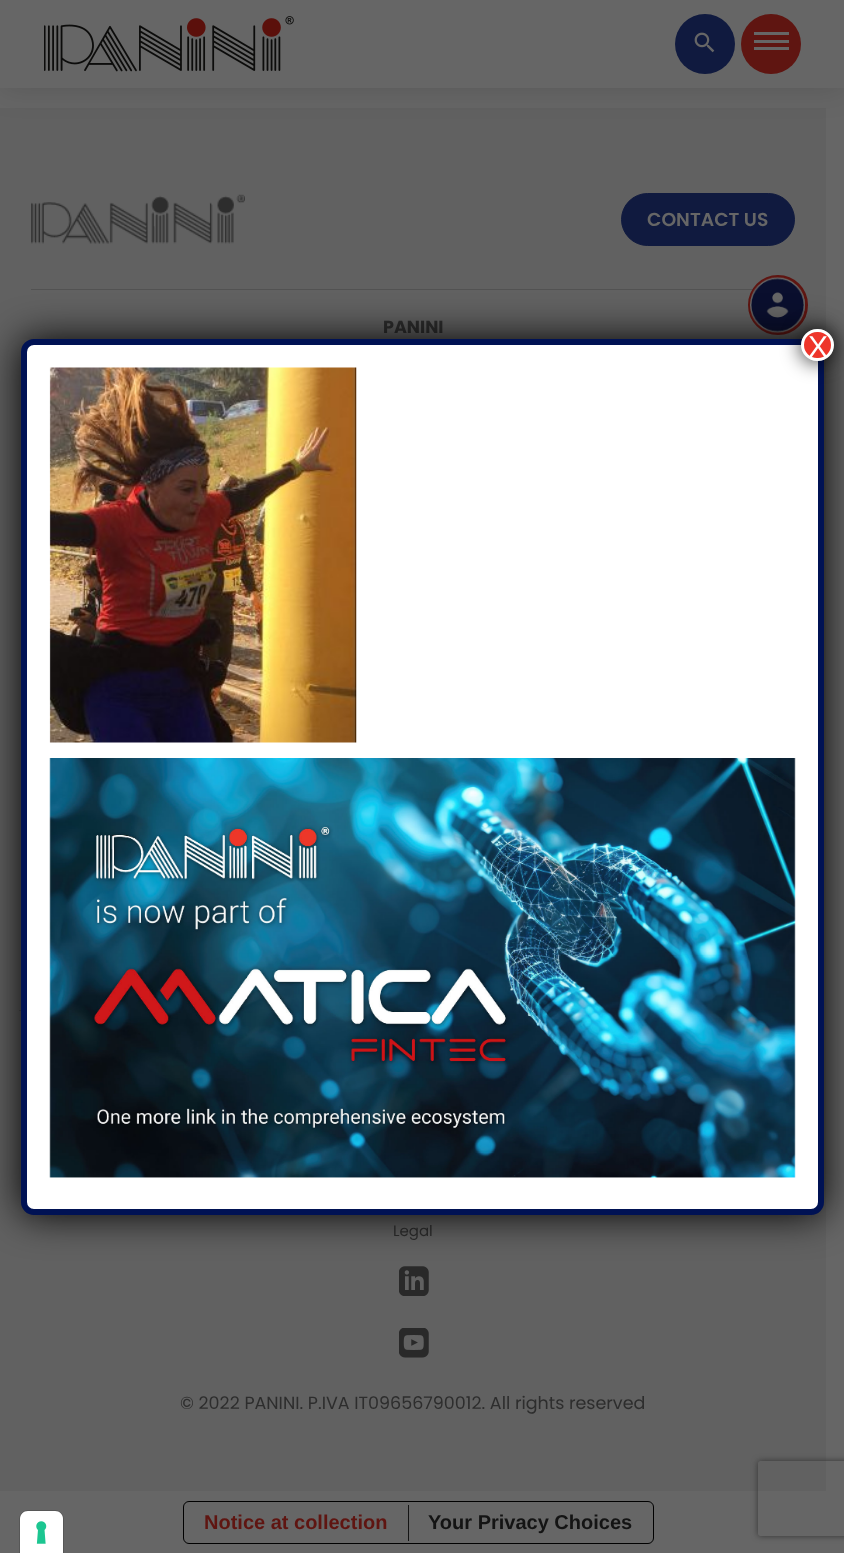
(async () => {
    const canvas = document.querySelector("canvas");
    canvas.width = 844;
    canvas.height = 1553;
    const context = canvas.getContext("2d");
    context.miterLimit = 4;
    context.fontKerning = "normal";
    function write(s, x, y, font, color) {
        context.font = font;
        context.fillStyle = color;
        context.fillText(s, x, y);
    }
    function block(x, y, w, h, color) {
        context.fillStyle = color;
        context.fillRect(x, y, w, h);
    }
    async function photo(src, x, y, w, h) {
        const img = new Image();
        img.src = src;
        await img.decode();
        context.drawImage(img, x, y, w, h);
    }

    block(0, 0, 844, 1553, "rgb(102, 102, 102)");
    block(0, 108, 826, 1383, "rgb(97, 97, 97)");
    context.fillStyle = "rgba(0, 0, 0, 0.14)";
    context.filter = "blur(15.5px)";
    context.beginPath();
    context.rect(0, 0, 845, 88);
    context.fill();
    context.filter = "none";
    block(0, 0, 844, 88, "rgb(102, 102, 102)");
    await photo("media/1.png", 44, 16, 250, 56);
    context.fillStyle = "rgb(16, 26, 63)";
    context.beginPath();
    context.arc(705, 44, 30, 0, Math.PI * 2);
    context.fill();
    await photo("media/2.png", 694, 32, 21, 21);
    context.fillStyle = "rgb(95, 21, 17)";
    context.beginPath();
    context.arc(771, 44, 30, 0, Math.PI * 2);
    context.fill();
    block(754, 32, 35, 3, "rgb(102, 102, 102)");
    block(754, 40, 35, 3, "rgb(102, 102, 102)");
    block(754, 47, 35, 3, "rgb(102, 102, 102)");
    await photo("media/3.png", 31, 194, 214, 50);
    context.fillStyle = "rgb(16, 26, 63)";
    context.beginPath();
    context.roundRect(621.5, 193.5, 173, 52, 26);
    context.fill();
    context.strokeStyle = "rgb(16, 26, 63)";
    context.stroke();
    write("CONTACT US", 647, 226, "600 18.75px Poppins", "rgb(102, 102, 102)");
    block(31, 289, 725, 1, "rgb(82, 82, 82)");
    write("PANINI", 383, 333, "bold 17.5px Poppins", "rgb(45, 45, 45)");
    block(19, 1010, 2, 1, "rgb(82, 82, 82)");
    write("Legal", 393, 1236, "15px Poppins", "rgb(45, 45, 45)");
    await photo("media/4.png", 399, 1266, 30, 30);
    await photo("media/5.png", 399, 1328, 30, 30);
    write("© 2022 PANINI. P.IVA IT09656790012. All rights reserved", 180, 1409, "17.5px Poppins", "rgb(45, 45, 45)");
    context.beginPath();
    context.arc(778, 305, 28.5, 0, Math.PI * 2);
    context.strokeStyle = "rgb(95, 21, 17)";
    context.lineWidth = 3;
    context.stroke();
    await photo("media/6.png", 750, 277, 55, 56);
    context.fillStyle = "rgb(2, 2, 2)";
    context.filter = "blur(19px)";
    context.beginPath();
    context.roundRect(21, 339, 803, 876, 13);
    context.fill();
    context.filter = "none";
    context.fillStyle = "rgb(255, 255, 255)";
    context.beginPath();
    context.roundRect(24, 342, 797, 870, 10);
    context.fill();
    context.strokeStyle = "rgb(0, 18, 84)";
    context.lineWidth = 6;
    context.stroke();
    context.fillStyle = "rgba(2, 2, 2, 0.75)";
    context.filter = "blur(9.5px)";
    context.beginPath();
    context.roundRect(800, 328, 35, 35, 17.5);
    context.fill();
    context.filter = "none";
    context.fillStyle = "rgb(238, 53, 42)";
    context.beginPath();
    context.roundRect(802.5, 330.5, 30, 29, 14.5);
    context.fill();
    context.strokeStyle = "rgb(255, 255, 255)";
    context.lineWidth = 3;
    context.stroke();
    write("X", 808, 357, "30px Liberation Sans", "rgb(255, 255, 255)");
    await photo("media/7.png", 49, 367, 308, 376);
    await photo("media/8.png", 49, 758, 747, 420);
    context.beginPath();
    context.moveTo(28, 1510.5);
    context.lineTo(55, 1510.5);
    context.bezierCurveTo(59.5, 1510.5, 63.5, 1514.5, 63.5, 1519);
    context.lineTo(63.5, 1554.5);
    context.lineTo(19.5, 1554.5);
    context.lineTo(19.5, 1519);
    context.bezierCurveTo(19.5, 1514.5, 23.5, 1510.5, 28, 1510.5);
    context.closePath();
    context.strokeStyle = "rgb(87, 87, 87)";
    context.lineWidth = 1;
    context.stroke();
    context.beginPath();
    context.moveTo(28, 1511);
    context.lineTo(55, 1511);
    context.bezierCurveTo(59.5, 1511, 63, 1514.5, 63, 1519);
    context.lineTo(63, 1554);
    context.lineTo(20, 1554);
    context.lineTo(20, 1519);
    context.bezierCurveTo(20, 1514.5, 23.5, 1511, 28, 1511);
    context.closePath();
    context.fill();
    await photo("media/9.png", 36, 1521, 11, 23);
    context.beginPath();
    context.roundRect(183.5, 1501.5, 470, 42, 5.5);
    context.strokeStyle = "rgb(0, 0, 0)";
    context.stroke();
    write("Notice at collection", 204, 1529, "bold 20px Liberation Sans", "rgb(95, 21, 17)");
    block(408, 1505, 1, 36, "rgb(20, 20, 20)");
    write("Your Privacy Choices", 428, 1529, "bold 20px Liberation Sans", "rgb(20, 20, 20)");
    context.save();
    context.beginPath();
    context.moveTo(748, 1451);
    context.lineTo(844, 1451);
    context.lineTo(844, 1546);
    context.lineTo(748, 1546);
    context.closePath();
    context.moveTo(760.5, 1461);
    context.lineTo(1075.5, 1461);
    context.bezierCurveTo(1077, 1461, 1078, 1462, 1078, 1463.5);
    context.lineTo(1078, 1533.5);
    context.bezierCurveTo(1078, 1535, 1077, 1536, 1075.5, 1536);
    context.lineTo(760.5, 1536);
    context.bezierCurveTo(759, 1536, 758, 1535, 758, 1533.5);
    context.lineTo(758, 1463.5);
    context.bezierCurveTo(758, 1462, 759, 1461, 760.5, 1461);
    context.closePath();
    context.clip("evenodd");
    context.fillStyle = "rgb(51, 51, 51)";
    context.filter = "blur(3px)";
    context.beginPath();
    context.roundRect(758, 1461, 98, 75, 2.5);
    context.fill();
    context.filter = "none";
    context.restore();
})();
